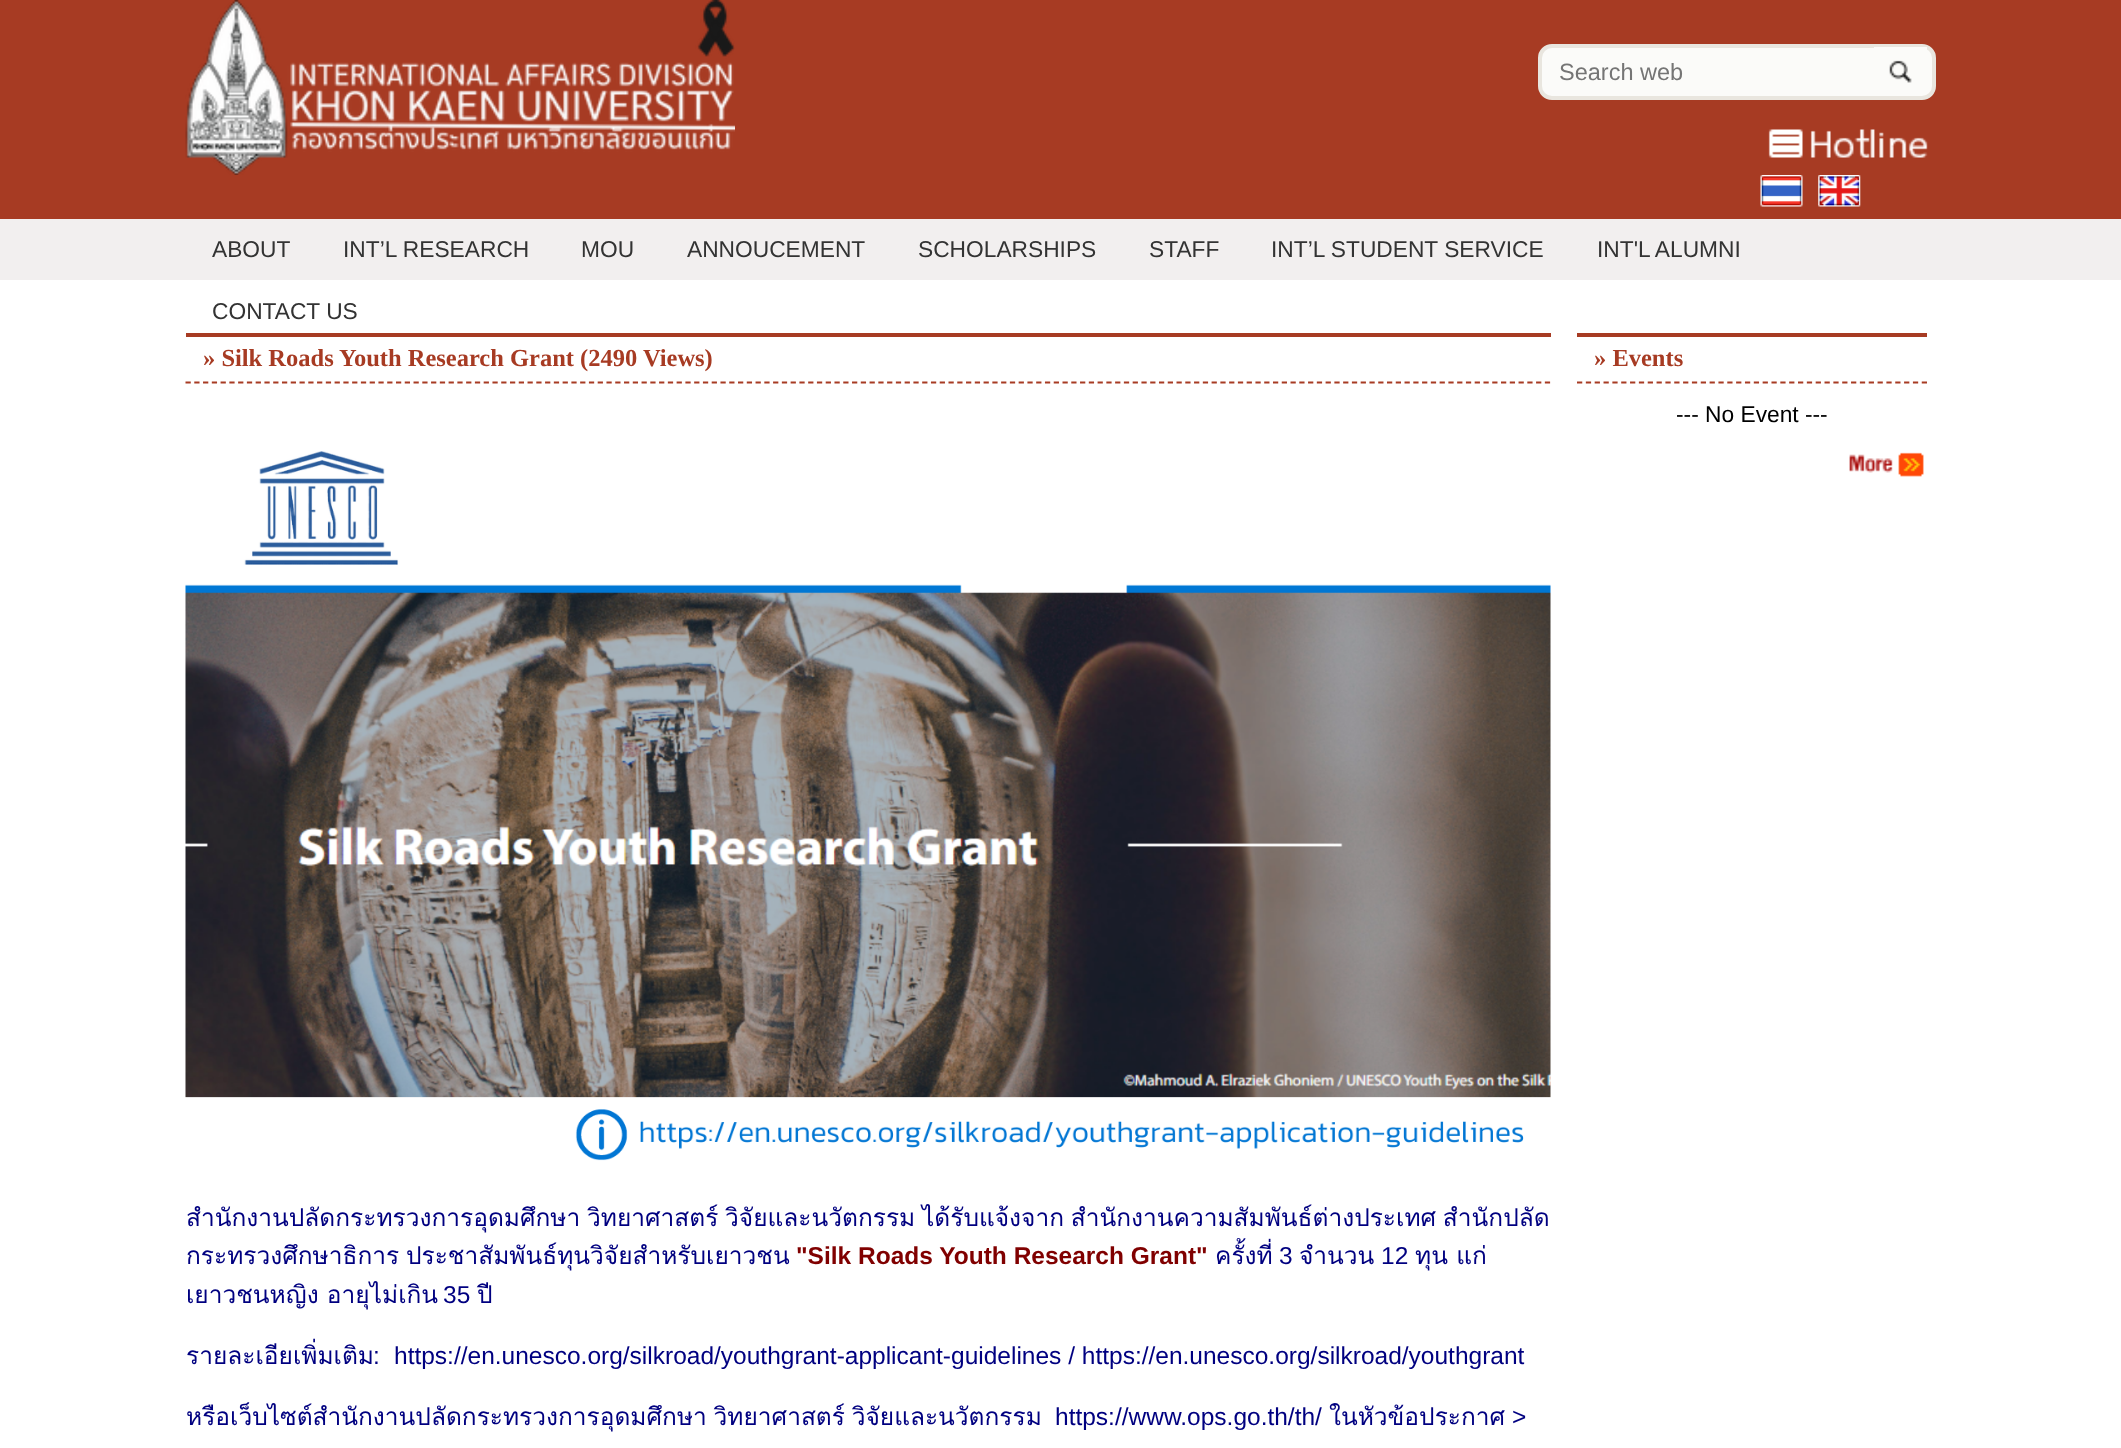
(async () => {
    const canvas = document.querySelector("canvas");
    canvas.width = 2121;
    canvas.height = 1448;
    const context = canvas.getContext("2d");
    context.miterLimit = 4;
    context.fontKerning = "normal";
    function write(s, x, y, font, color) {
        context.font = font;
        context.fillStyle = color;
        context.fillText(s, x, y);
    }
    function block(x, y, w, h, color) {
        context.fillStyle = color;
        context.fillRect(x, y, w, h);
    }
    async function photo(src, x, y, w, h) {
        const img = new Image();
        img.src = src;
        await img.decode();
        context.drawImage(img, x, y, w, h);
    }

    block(0, 0, 2121, 1448, "rgb(167, 59, 35)");
    await photo("media/1.png", 185, 0, 550, 175);
    context.fillStyle = "rgb(251, 251, 249)";
    context.beginPath();
    context.roundRect(1540, 46, 394, 52, 12);
    context.fill();
    context.strokeStyle = "rgb(233, 230, 223)";
    context.lineWidth = 4;
    context.stroke();
    write("Search web", 1559, 80, "23.5px Liberation Sans", "rgb(117, 117, 117)");
    block(1874, 47, 53, 3, "rgb(251, 251, 249)");
    await photo("media/2.png", 1889, 60, 23, 23);
    await photo("media/3.png", 1768, 129, 160, 29);
    await photo("media/4.png", 1760, 175, 43, 32);
    await photo("media/5.png", 1818, 175, 43, 32);
    block(0, 219, 2121, 61, "rgb(242, 239, 239)");
    write("ABOUT", 212, 257, "22.75px Liberation Sans", "rgb(51, 51, 51)");
    write("INT’L RESEARCH", 343, 257, "22.75px Liberation Sans", "rgb(51, 51, 51)");
    write("MOU", 581, 257, "22.75px Liberation Sans", "rgb(51, 51, 51)");
    write("ANNOUCEMENT", 687, 257, "22.75px Liberation Sans", "rgb(51, 51, 51)");
    write("SCHOLARSHIPS", 918, 257, "22.75px Liberation Sans", "rgb(51, 51, 51)");
    write("STAFF", 1149, 257, "22.75px Liberation Sans", "rgb(51, 51, 51)");
    write("INT’L STUDENT SERVICE", 1271, 257, "22.75px Liberation Sans", "rgb(51, 51, 51)");
    write("INT'L ALUMNI", 1597, 257, "22.75px Liberation Sans", "rgb(51, 51, 51)");
    block(0, 280, 2121, 1168, "rgb(255, 255, 255)");
    write("CONTACT US", 212, 319, "22.75px Liberation Sans", "rgb(51, 51, 51)");
    block(186, 333, 1365, 4, "rgb(167, 59, 35)");
    context.beginPath();
    context.moveTo(185.5, 382.5);
    context.lineTo(1550.5, 382.5);
    context.strokeStyle = "rgb(167, 59, 35)";
    context.lineWidth = 1.8;
    context.setLineDash([5.25, 3.52]);
    context.stroke();
    write("» Silk Roads Youth Research Grant (2490 Views)", 203, 366, "bold 24.5px Liberation Serif", "rgb(167, 59, 35)");
    await photo("media/6.png", 185, 451, 1366, 710);
    context.wordSpacing = "-1.5px";
    write("สำนักงานปลัดกระทรวงการอุดมศึกษา วิทยาศาสตร์ วิจัยและนวัตกรรม ได้รับแจ้งจาก สำนักงานความสัมพันธ์ต่างประเทศ สำนักปลัด", 186, 1226, "24.5px Loma", "rgb(0, 0, 128)");
    write("กระทรวงศึกษาธิการ ประชาสัมพันธ์ทุนวิจัยสำหรับเยาวชน", 186, 1264, "24.5px Loma", "rgb(0, 0, 128)");
    context.wordSpacing = "0px";
    write("\"Silk Roads Youth Research Grant\"", 796, 1264, "bold 24.5px Liberation Sans", "rgb(128, 0, 0)");
    write("ครั้งที่", 1215, 1264, "24.5px Loma", "rgb(0, 0, 128)");
    write("3", 1279, 1264, "24.5px Liberation Sans", "rgb(0, 0, 128)");
    write("จำนวน", 1299, 1264, "24.5px Loma", "rgb(0, 0, 128)");
    write("12", 1381, 1264, "24.5px Liberation Sans", "rgb(0, 0, 128)");
    write("ทุน แก่", 1415, 1264, "24.5px Loma", "rgb(0, 0, 128)");
    write("เยาวชนหญิง อายุไม่เกิน", 186, 1303, "24.5px Loma", "rgb(0, 0, 128)");
    write("35", 443, 1303, "24.5px Liberation Sans", "rgb(0, 0, 128)");
    write("ปี", 477, 1303, "24.5px Loma", "rgb(0, 0, 128)");
    write("รายละเอียเพิ่มเติม", 186, 1364, "24.5px Loma", "rgb(0, 0, 128)");
    write(":", 373, 1364, "24.5px Liberation Sans", "rgb(0, 0, 128)");
    write("https://en.unesco.org/silkroad/youthgrant-applicant-guidelines / https://en.unesco.org/silkroad/youthgrant", 394, 1364, "24.5px Liberation Sans", "rgb(0, 0, 128)");
    context.wordSpacing = "-1.5px";
    write("หรือเว็บไซต์สำนักงานปลัดกระทรวงการอุดมศึกษา วิทยาศาสตร์ วิจัยและนวัตกรรม", 186, 1425, "24.5px Loma", "rgb(0, 0, 128)");
    context.wordSpacing = "0px";
    write("https://www.ops.go.th/th/", 1055, 1425, "24.5px Liberation Sans", "rgb(0, 0, 128)");
    write("ในหัวข้อประกาศ", 1329, 1425, "24.5px Loma", "rgb(0, 0, 128)");
    write(">", 1512, 1425, "24.5px Liberation Sans", "rgb(0, 0, 128)");
    block(1577, 333, 350, 4, "rgb(167, 59, 35)");
    context.beginPath();
    context.moveTo(1577, 382.5);
    context.lineTo(1927, 382.5);
    context.setLineDash([5.25, 3.59]);
    context.stroke();
    write("» Events", 1594, 366, "bold 24.5px Liberation Serif", "rgb(167, 59, 35)");
    write("--- No Event ---", 1676, 422, "22.75px Liberation Sans", "rgb(0, 0, 0)");
    await photo("media/7.png", 1849, 452, 75, 25);
})();
